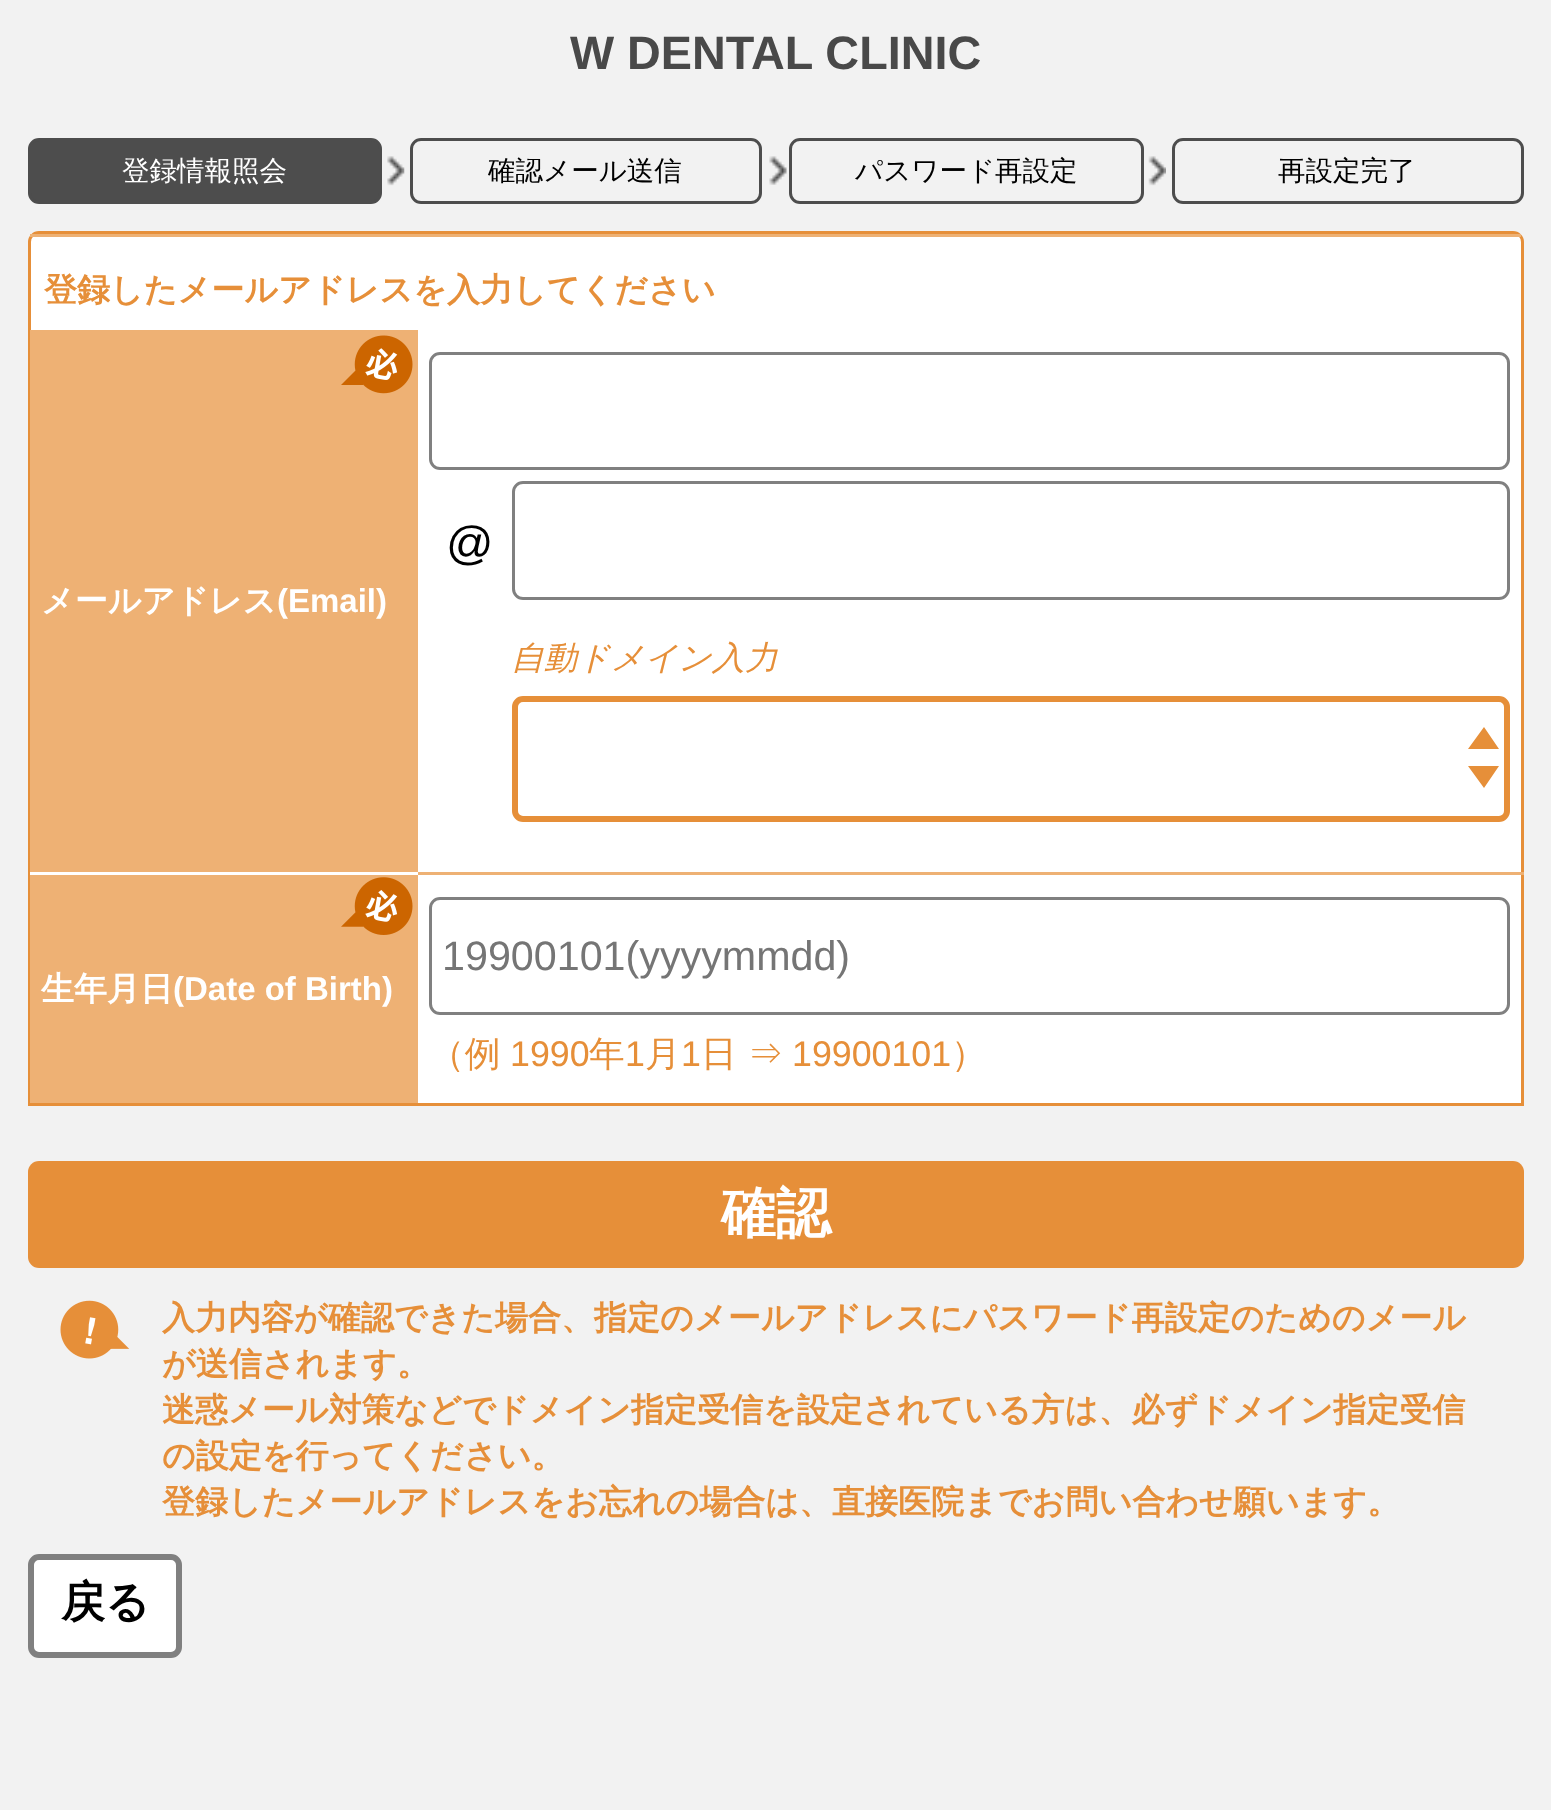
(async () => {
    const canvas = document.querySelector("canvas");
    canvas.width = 1551;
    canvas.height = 1810;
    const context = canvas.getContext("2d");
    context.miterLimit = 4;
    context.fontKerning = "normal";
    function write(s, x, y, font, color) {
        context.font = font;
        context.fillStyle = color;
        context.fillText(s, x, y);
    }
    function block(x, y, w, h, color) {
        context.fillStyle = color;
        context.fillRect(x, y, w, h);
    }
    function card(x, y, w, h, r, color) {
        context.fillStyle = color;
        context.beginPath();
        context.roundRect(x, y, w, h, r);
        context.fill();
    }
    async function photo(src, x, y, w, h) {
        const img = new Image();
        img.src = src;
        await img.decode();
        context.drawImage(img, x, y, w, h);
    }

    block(0, 0, 1551, 1810, "rgb(242, 242, 242)");
    write("W DENTAL CLINIC", 570, 69, "bold 46.75px Liberation Sans", "rgb(73, 73, 73)");
    context.fillStyle = "rgb(77, 77, 77)";
    context.beginPath();
    context.roundRect(29.5, 139.5, 351, 63, 9.5);
    context.fill();
    context.strokeStyle = "rgb(77, 77, 77)";
    context.lineWidth = 3;
    context.stroke();
    write("登録情報照会", 122, 180, "500 27.5px WenQuanYi Zen Hei", "rgb(255, 255, 255)");
    await photo("media/1.png", 387, 156, 18, 30);
    context.beginPath();
    context.roundRect(411.5, 139.5, 349, 63, 9.5);
    context.stroke();
    write("確認メール送信", 488, 180, "500 27.5px WenQuanYi Zen Hei", "rgb(0, 0, 0)");
    await photo("media/2.png", 769, 156, 18, 29);
    context.beginPath();
    context.roundRect(790.5, 139.5, 352, 63, 9.5);
    context.stroke();
    write("パスワード再設定", 855, 180, "500 27.5px WenQuanYi Zen Hei", "rgb(0, 0, 0)");
    await photo("media/3.png", 1148, 156, 18, 30);
    context.beginPath();
    context.roundRect(1173.5, 139.5, 349, 63, 9.5);
    context.stroke();
    write("再設定完了", 1278, 180, "500 27.5px WenQuanYi Zen Hei", "rgb(0, 0, 0)");
    context.fillStyle = "rgb(255, 255, 255)";
    context.beginPath();
    context.roundRect(29.5, 232.5, 1493, 872, [9.5, 9.5, 0, 0]);
    context.fill();
    context.strokeStyle = "rgb(230, 143, 57)";
    context.stroke();
    block(30, 234, 1491, 3, "rgb(238, 177, 116)");
    write("登録したメールアドレスを入力してください", 44, 301, "bold 33px WenQuanYi Zen Hei", "rgb(230, 143, 57)");
    block(30, 330, 388, 542, "rgb(238, 177, 116)");
    await photo("media/4.png", 341, 335, 72, 59);
    block(415, 872, 1109, 3, "rgb(238, 177, 116)");
    block(30, 872, 388, 3, "rgb(255, 255, 255)");
    write("メールアドレス", 41, 612, "bold 33px WenQuanYi Zen Hei", "rgb(255, 255, 255)");
    write("(Email)", 277, 612, "bold 33px Liberation Sans", "rgb(255, 255, 255)");
    context.beginPath();
    context.roundRect(430.5, 353.5, 1078, 115, 9.5);
    context.strokeStyle = "rgb(128, 128, 128)";
    context.stroke();
    write("@", 446, 559, "46.75px Liberation Sans", "rgb(0, 0, 0)");
    context.beginPath();
    context.roundRect(513.5, 482.5, 995, 116, 9.5);
    context.stroke();
    write("自動ドメイン入力", 511, 669, "italic 500 33px WenQuanYi Zen Hei", "rgb(230, 143, 57)");
    context.beginPath();
    context.moveTo(1484, 727);
    context.lineTo(1468, 749);
    context.lineTo(1499, 749);
    context.closePath();
    context.moveTo(1484, 788);
    context.lineTo(1499, 766);
    context.lineTo(1468, 766);
    context.closePath();
    context.fill();
    context.beginPath();
    context.roundRect(515, 699, 992, 120, 8);
    context.strokeStyle = "rgb(230, 143, 57)";
    context.lineWidth = 6;
    context.stroke();
    block(30, 875, 388, 228, "rgb(238, 177, 116)");
    await photo("media/5.png", 341, 877, 72, 58);
    write("生年月日", 41, 1000, "bold 33px WenQuanYi Zen Hei", "rgb(255, 255, 255)");
    write("(Date of Birth)", 173, 1000, "bold 33px Liberation Sans", "rgb(255, 255, 255)");
    context.beginPath();
    context.roundRect(430.5, 898.5, 1078, 115, 9.5);
    context.strokeStyle = "rgb(128, 128, 128)";
    context.lineWidth = 3;
    context.stroke();
    write("19900101(yyyymmdd)", 442, 970, "41.25px Liberation Sans", "rgb(117, 117, 117)");
    write("（例", 429, 1066, "500 35.75px WenQuanYi Zen Hei", "rgb(230, 143, 57)");
    write("1990", 510, 1066, "35.75px Liberation Sans", "rgb(230, 143, 57)");
    write("年", 589, 1066, "500 35.75px WenQuanYi Zen Hei", "rgb(230, 143, 57)");
    write("1", 625, 1066, "35.75px Liberation Sans", "rgb(230, 143, 57)");
    write("月", 645, 1066, "500 35.75px WenQuanYi Zen Hei", "rgb(230, 143, 57)");
    write("1", 681, 1066, "35.75px Liberation Sans", "rgb(230, 143, 57)");
    write("日 ⇒", 701, 1066, "500 35.75px WenQuanYi Zen Hei", "rgb(230, 143, 57)");
    write("19900101", 792, 1066, "35.75px Liberation Sans", "rgb(230, 143, 57)");
    write("）", 951, 1066, "500 35.75px WenQuanYi Zen Hei", "rgb(230, 143, 57)");
    card(28, 1161, 1496, 107, 11, "rgb(230, 143, 57)");
    write("確認", 721, 1232, "bold 55px WenQuanYi Zen Hei", "rgb(255, 255, 255)");
    await photo("media/6.png", 60, 1300, 70, 59);
    write("入力内容が確認できた場合、指定のメールアドレスにパスワード再設定のためのメール", 162, 1329, "bold 33px WenQuanYi Zen Hei", "rgb(230, 143, 57)");
    write("が送信されます。", 162, 1375, "bold 33px WenQuanYi Zen Hei", "rgb(230, 143, 57)");
    write("迷惑メール対策などでドメイン指定受信を設定されている方は、必ずドメイン指定受信", 162, 1421, "bold 33px WenQuanYi Zen Hei", "rgb(230, 143, 57)");
    write("の設定を行ってください。", 162, 1467, "bold 33px WenQuanYi Zen Hei", "rgb(230, 143, 57)");
    write("登録したメールアドレスをお忘れの場合は、直接医院までお問い合わせ願います。", 162, 1513, "bold 33px WenQuanYi Zen Hei", "rgb(230, 143, 57)");
    context.fillStyle = "rgb(255, 255, 255)";
    context.beginPath();
    context.roundRect(31, 1557, 148, 98, 8);
    context.fill();
    context.lineWidth = 6;
    context.stroke();
    write("戻る", 61, 1617, "bold 44px WenQuanYi Zen Hei", "rgb(0, 0, 0)");
})();
